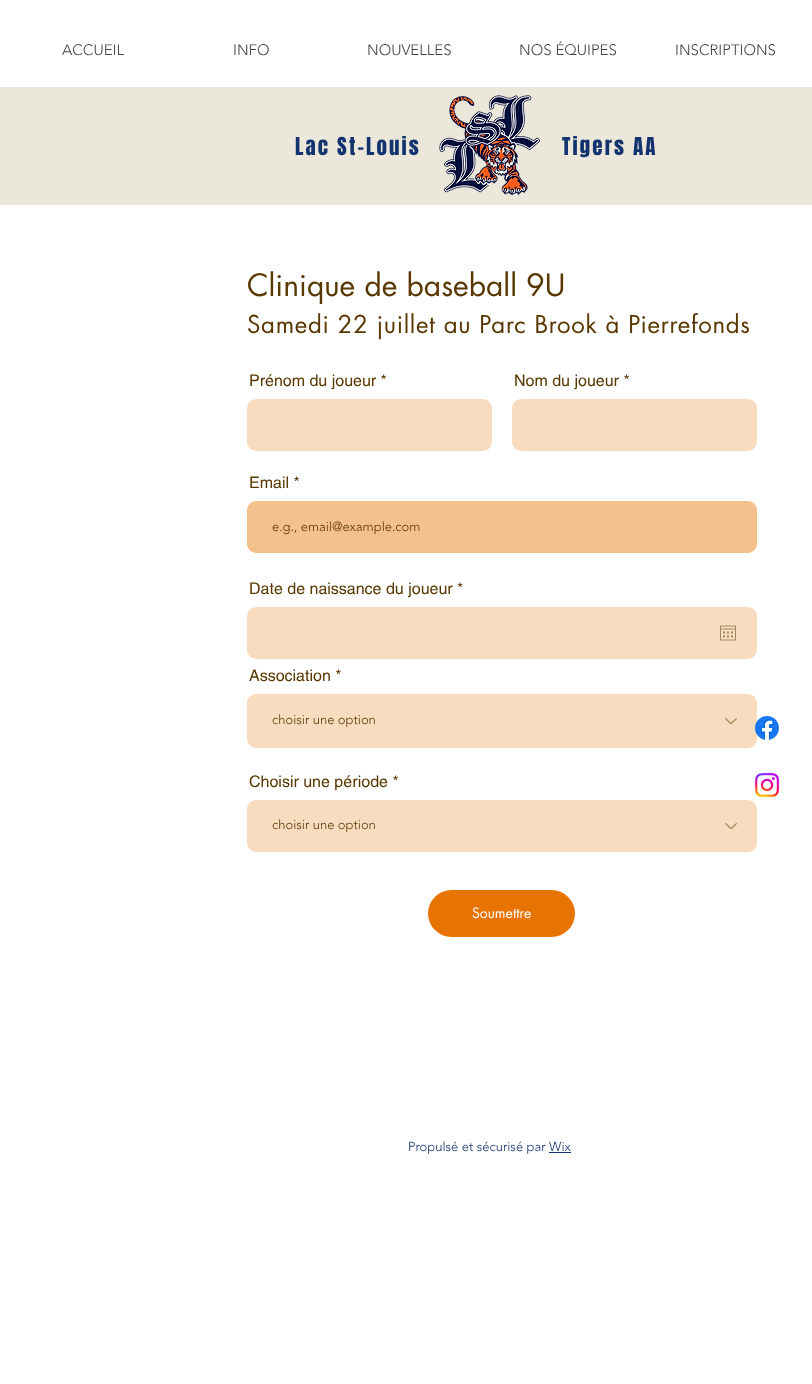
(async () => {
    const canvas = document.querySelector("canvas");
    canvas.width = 812;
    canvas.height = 1384;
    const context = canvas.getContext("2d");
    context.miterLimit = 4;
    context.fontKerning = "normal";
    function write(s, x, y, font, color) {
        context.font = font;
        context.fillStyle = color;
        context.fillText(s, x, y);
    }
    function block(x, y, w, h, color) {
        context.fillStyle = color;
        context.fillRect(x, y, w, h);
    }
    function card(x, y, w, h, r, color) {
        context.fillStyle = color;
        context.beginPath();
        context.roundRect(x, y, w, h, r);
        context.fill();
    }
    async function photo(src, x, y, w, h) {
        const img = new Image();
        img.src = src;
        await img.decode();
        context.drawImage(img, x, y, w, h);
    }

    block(0, 0, 812, 1384, "rgb(255, 255, 255)");
    write("ACCUEIL", 62, 55, "300 15px 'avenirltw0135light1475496'", "rgb(68, 68, 68)");
    write("INFO", 233, 55, "300 15px 'avenirltw0135light1475496'", "rgb(68, 68, 68)");
    write("NOUVELLES", 367, 55, "300 15px 'avenirltw0135light1475496'", "rgb(68, 68, 68)");
    write("NOS ÉQUIPES", 519, 55, "300 15px 'avenirltw0135light1475496'", "rgb(68, 68, 68)");
    write("INSCRIPTIONS", 675, 55, "300 15px 'avenirltw0135light1475496'", "rgb(68, 68, 68)");
    block(0, 87, 812, 118, "rgb(235, 231, 219)");
    context.letterSpacing = "2.1px";
    write("Lac St-Louis", 295, 155, "21px Anton", "rgb(19, 51, 110)");
    await photo("media/1.png", 439, 95, 101, 101);
    write("Tigers AA", 562, 155, "21px Anton", "rgb(19, 51, 110)");
    context.letterSpacing = "0px";
    write("Clinique de baseball 9U", 247, 296, "30px futura", "rgb(88, 55, 0)");
    context.letterSpacing = "0.7px";
    write("Samedi 22 juillet au Parc Brook à Pierrefonds", 247, 333, "24px futura", "rgb(88, 55, 0)");
    context.letterSpacing = "0px";
    write("Prénom du joueur *", 249, 386, "16px helvetica", "rgb(88, 55, 0)");
    card(247, 399, 245, 52, 9, "rgb(249, 220, 191)");
    write("Nom du joueur *", 514, 386, "16px helvetica", "rgb(88, 55, 0)");
    card(512, 399, 245, 52, 9, "rgb(249, 220, 191)");
    write("Email *", 249, 488, "16px helvetica", "rgb(88, 55, 0)");
    card(247, 501, 510, 52, 9, "rgb(244, 192, 140)");
    write("e.g., email@example.com", 272, 531, "300 13px 'avenirltw0135light1475496'", "rgb(88, 55, 0)");
    write("Date de naissance du joueur *", 249, 594, "16px helvetica", "rgb(88, 55, 0)");
    card(247, 607, 510, 52, 9, "rgb(249, 220, 191)");
    await photo("media/2.png", 720, 625, 16, 16);
    write("Association *", 249, 681, "16px helvetica", "rgb(88, 55, 0)");
    card(247, 694, 510, 54, 9, "rgb(249, 220, 191)");
    write("choisir une option", 272, 724, "300 13px 'avenirltw0135light1475496'", "rgb(88, 55, 0)");
    await photo("media/3.png", 725, 718, 12, 6);
    write("Choisir une période *", 249, 787, "16px helvetica", "rgb(88, 55, 0)");
    card(247, 800, 510, 52, 9, "rgb(249, 220, 191)");
    write("choisir une option", 272, 829, "300 13px 'avenirltw0135light1475496'", "rgb(88, 55, 0)");
    await photo("media/3.png", 725, 823, 12, 6);
    card(428, 890, 147, 47, 23.5, "rgb(231, 115, 0)");
    write("Soumettre", 472, 918, "14px futura", "rgb(255, 255, 255)");
    await photo("media/4.png", 754, 715, 26, 25);
    await photo("media/5.png", 754, 772, 26, 26);
    write("Propulsé et sécurisé par Wix", 408, 1151, "300 13px 'avenirltw0135light1475496'", "rgb(19, 51, 110)");
    block(549, 1152, 22, 1, "rgb(19, 51, 110)");
})();
